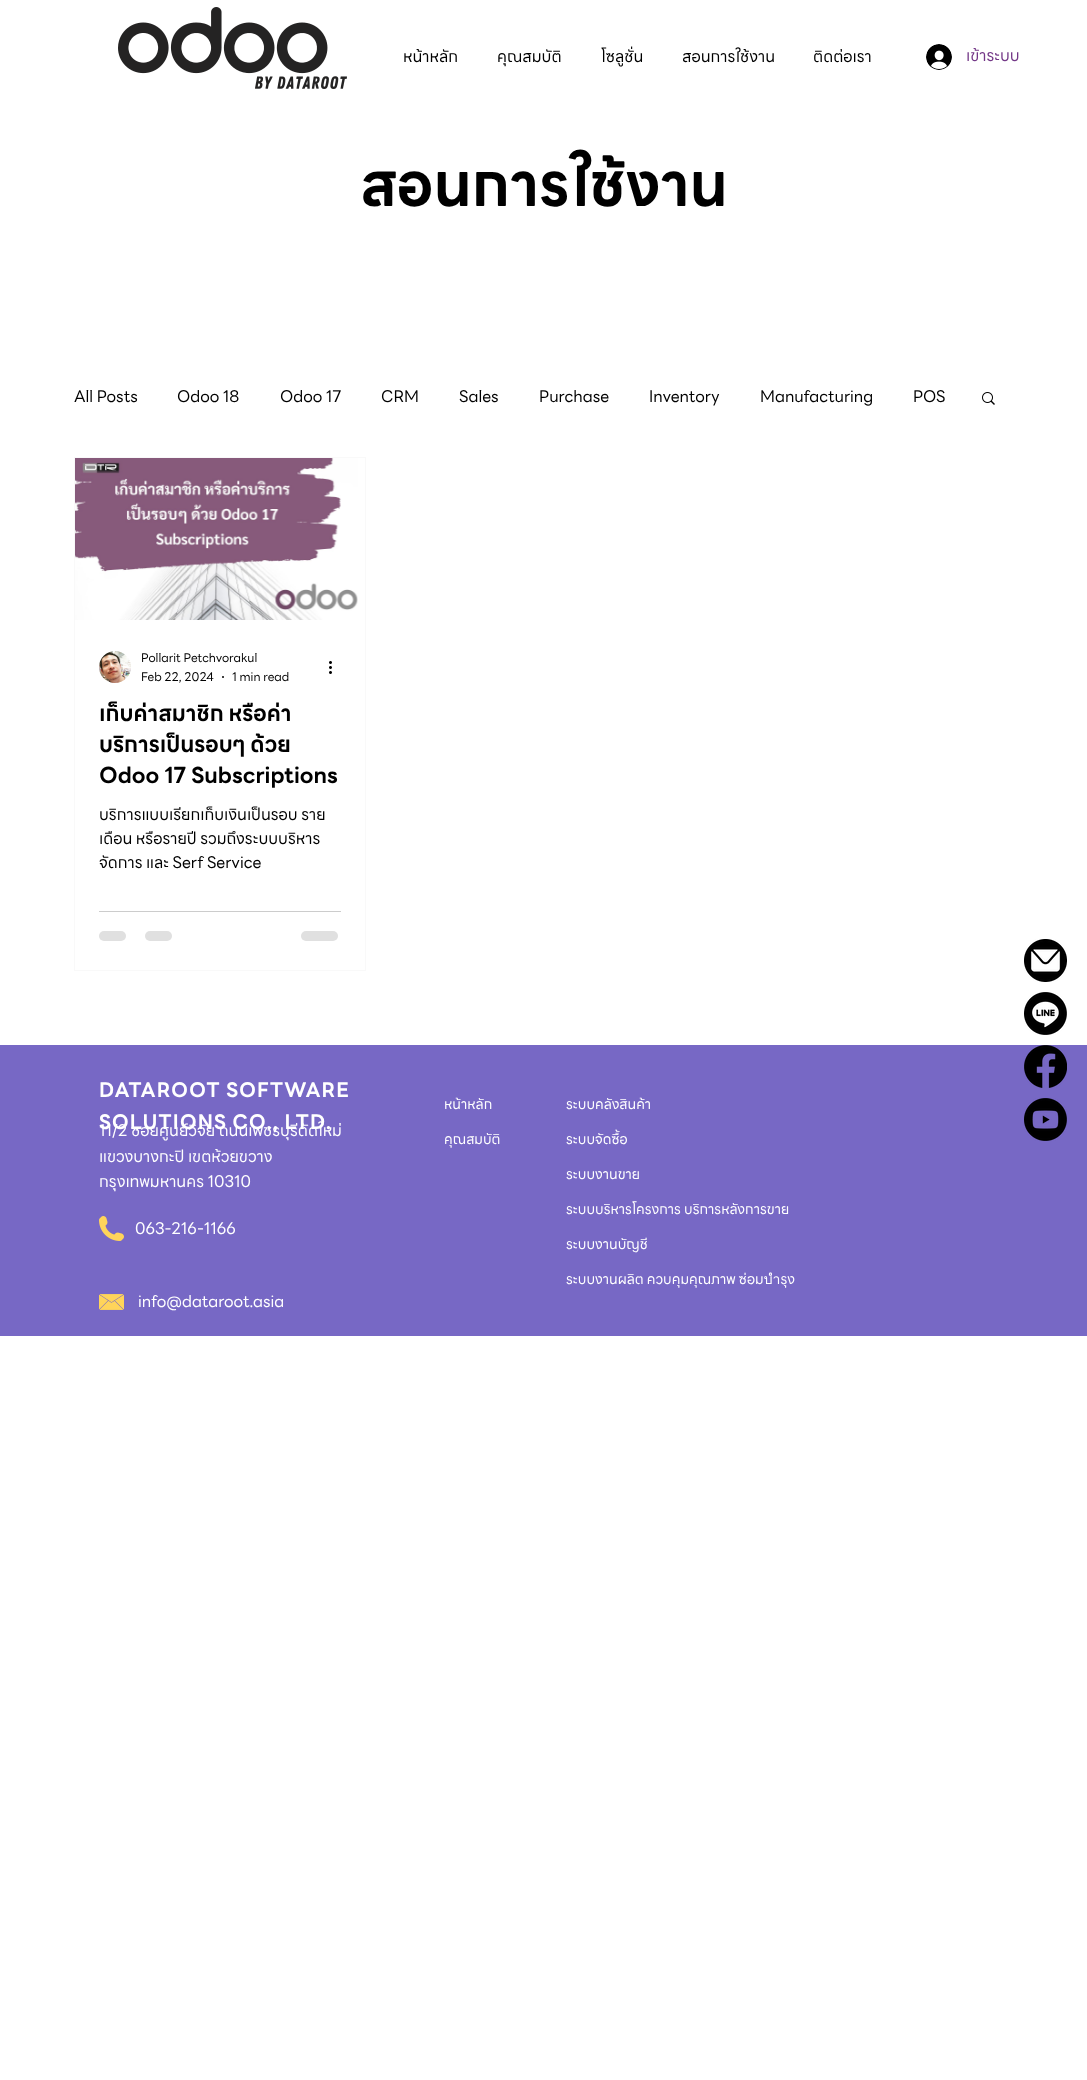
(async () => {
    const canvas = document.querySelector("canvas");
    canvas.width = 1087;
    canvas.height = 2080;
    const context = canvas.getContext("2d");
    context.miterLimit = 4;
    context.fontKerning = "normal";
    function write(s, x, y, font, color) {
        context.font = font;
        context.fillStyle = color;
        context.fillText(s, x, y);
    }
    function block(x, y, w, h, color) {
        context.fillStyle = color;
        context.fillRect(x, y, w, h);
    }
    function card(x, y, w, h, r, color) {
        context.fillStyle = color;
        context.beginPath();
        context.roundRect(x, y, w, h, r);
        context.fill();
    }
    async function photo(src, x, y, w, h) {
        const img = new Image();
        img.src = src;
        await img.decode();
        context.drawImage(img, x, y, w, h);
    }

    block(0, 0, 1087, 2080, "rgb(255, 255, 255)");
    await photo("media/1.png", 118, 7, 229, 82);
    write("หน้าหลัก", 403, 62, "16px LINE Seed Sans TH", "rgb(0, 0, 0)");
    write("คุณสมบัติ", 497, 62, "16px LINE Seed Sans TH", "rgb(0, 0, 0)");
    write("โซลูชั่น", 601, 62, "16px LINE Seed Sans TH", "rgb(0, 0, 0)");
    write("สอนการใช้งาน", 682, 62, "16px LINE Seed Sans TH", "rgb(0, 0, 0)");
    write("ติดต่อเรา", 813, 62, "16px LINE Seed Sans TH", "rgb(0, 0, 0)");
    await photo("media/2.png", 926, 44, 26, 26);
    write("เข้าระบบ", 966, 61, "16px LINE Seed Sans TH", "rgb(115, 55, 135)");
    write("สอนการใช้งาน", 360, 206, "bold 60px LINE Seed Sans TH", "rgb(0, 0, 0)");
    write("All Posts", 74, 402, "16px LINE Seed Sans TH", "rgb(0, 0, 0)");
    write("Odoo 18", 177, 402, "16px LINE Seed Sans TH", "rgb(0, 0, 0)");
    write("Odoo 17", 280, 402, "16px LINE Seed Sans TH", "rgb(0, 0, 0)");
    write("CRM", 381, 402, "16px LINE Seed Sans TH", "rgb(0, 0, 0)");
    write("Sales", 459, 402, "16px LINE Seed Sans TH", "rgb(0, 0, 0)");
    write("Purchase", 539, 402, "16px LINE Seed Sans TH", "rgb(0, 0, 0)");
    write("Inventory", 649, 402, "16px LINE Seed Sans TH", "rgb(0, 0, 0)");
    write("Manufacturing", 760, 402, "16px LINE Seed Sans TH", "rgb(0, 0, 0)");
    write("POS", 913, 402, "16px LINE Seed Sans TH", "rgb(0, 0, 0)");
    await photo("media/3.png", 982, 392, 13, 13);
    context.strokeStyle = "rgb(249, 249, 249)";
    context.strokeRect(74.5, 457.5, 291, 513);
    await photo("media/4.png", 75, 458, 283, 162);
    await photo("media/5.png", 99, 651, 32, 32);
    write("Pollarit Petchvorakul", 141, 662, "12px LINE Seed Sans TH", "rgb(0, 0, 0)");
    write("Feb 22, 2024", 141, 681, "12px LINE Seed Sans TH", "rgb(0, 0, 0)");
    context.beginPath();
    context.arc(223, 677, 1, 0, Math.PI * 2);
    context.fill();
    write("1 min read", 232, 681, "12px LINE Seed Sans TH", "rgb(0, 0, 0)");
    await photo("media/6.png", 329, 661, 3, 13);
    context.save();
    context.beginPath();
    context.rect(99, 699, 242, 93);
    context.clip();
    write("เก็บค่าสมาชิก หรือค่า", 99, 721, "bold 22px LINE Seed Sans TH", "rgb(0, 0, 0)");
    context.restore();
    write("บริการเป็นรอบๆ ด้วย", 99, 752, "bold 22px LINE Seed Sans TH", "rgb(0, 0, 0)");
    write("Odoo 17 Subscriptions", 99, 783, "bold 22px LINE Seed Sans TH", "rgb(0, 0, 0)");
    write("บริการแบบเรียกเก็บเงินเป็นรอบ ราย", 99, 820, "16px LINE Seed Sans TH", "rgb(0, 0, 0)");
    context.save();
    context.beginPath();
    context.rect(99, 803, 242, 72);
    context.clip();
    write("เดือน หรือรายปี รวมถึงระบบบริหาร", 99, 844, "16px LINE Seed Sans TH", "rgb(0, 0, 0)");
    write("จัดการ และ Serf Service", 99, 868, "16px LINE Seed Sans TH", "rgb(0, 0, 0)");
    context.restore();
    block(99, 911, 242, 1, "rgb(204, 204, 204)");
    card(99, 931, 27, 10, 5, "rgb(224, 224, 224)");
    card(145, 931, 27, 10, 5, "rgb(224, 224, 224)");
    card(301, 931, 37, 10, 5, "rgb(224, 224, 224)");
    await photo("media/7.png", 1024, 939, 43, 43);
    await photo("media/8.png", 1024, 992, 43, 43);
    block(0, 1045, 1087, 291, "rgb(119, 104, 197)");
    await photo("media/9.png", 1024, 1045, 43, 43);
    await photo("media/10.png", 1024, 1098, 43, 43);
    context.letterSpacing = "1px";
    write("DATAROOT SOFTWARE", 99, 1097, "bold 20px LINE Seed Sans TH", "rgb(255, 255, 255)");
    write("SOLUTIONS CO., LTD.", 99, 1129, "bold 20px LINE Seed Sans TH", "rgb(255, 255, 255)");
    context.letterSpacing = "0px";
    write("หน้าหลัก", 444, 1109, "14px LINE Seed Sans TH", "rgb(255, 255, 255)");
    write("คุณสมบัติ", 444, 1144, "14px LINE Seed Sans TH", "rgb(255, 255, 255)");
    write("ระบบคลังสินค้า", 566, 1109, "14px LINE Seed Sans TH", "rgb(255, 255, 255)");
    write("ระบบจัดซื้อ", 566, 1144, "14px LINE Seed Sans TH", "rgb(255, 255, 255)");
    write("ระบบงานขาย", 566, 1179, "14px LINE Seed Sans TH", "rgb(255, 255, 255)");
    write("ระบบบริหารโครงการ บริการหลังการขาย", 566, 1214, "14px LINE Seed Sans TH", "rgb(255, 255, 255)");
    write("ระบบงานบัญชี", 566, 1249, "14px LINE Seed Sans TH", "rgb(255, 255, 255)");
    write("ระบบงานผลิต ควบคุมคุณภาพ ซ่อมบำรุง", 566, 1284, "14px LINE Seed Sans TH", "rgb(255, 255, 255)");
    write("11/2 ซอยศูนย์วิจัย ถนนเพชรบุรีตัดใหม่", 99, 1136, "16px LINE Seed Sans TH", "rgb(255, 255, 255)");
    write("แขวงบางกะปิ เขตห้วยขวาง", 99, 1162, "16px LINE Seed Sans TH", "rgb(255, 255, 255)");
    write("กรุงเทพมหานคร 10310", 99, 1187, "16px LINE Seed Sans TH", "rgb(255, 255, 255)");
    await photo("media/11.png", 99, 1216, 25, 25);
    write("063-216-1166", 135, 1234, "16px LINE Seed Sans TH", "rgb(255, 255, 255)");
    await photo("media/12.png", 99, 1294, 25, 16);
    write("info@dataroot.asia", 138, 1307, "16px LINE Seed Sans TH", "rgb(255, 255, 255)");
})();
